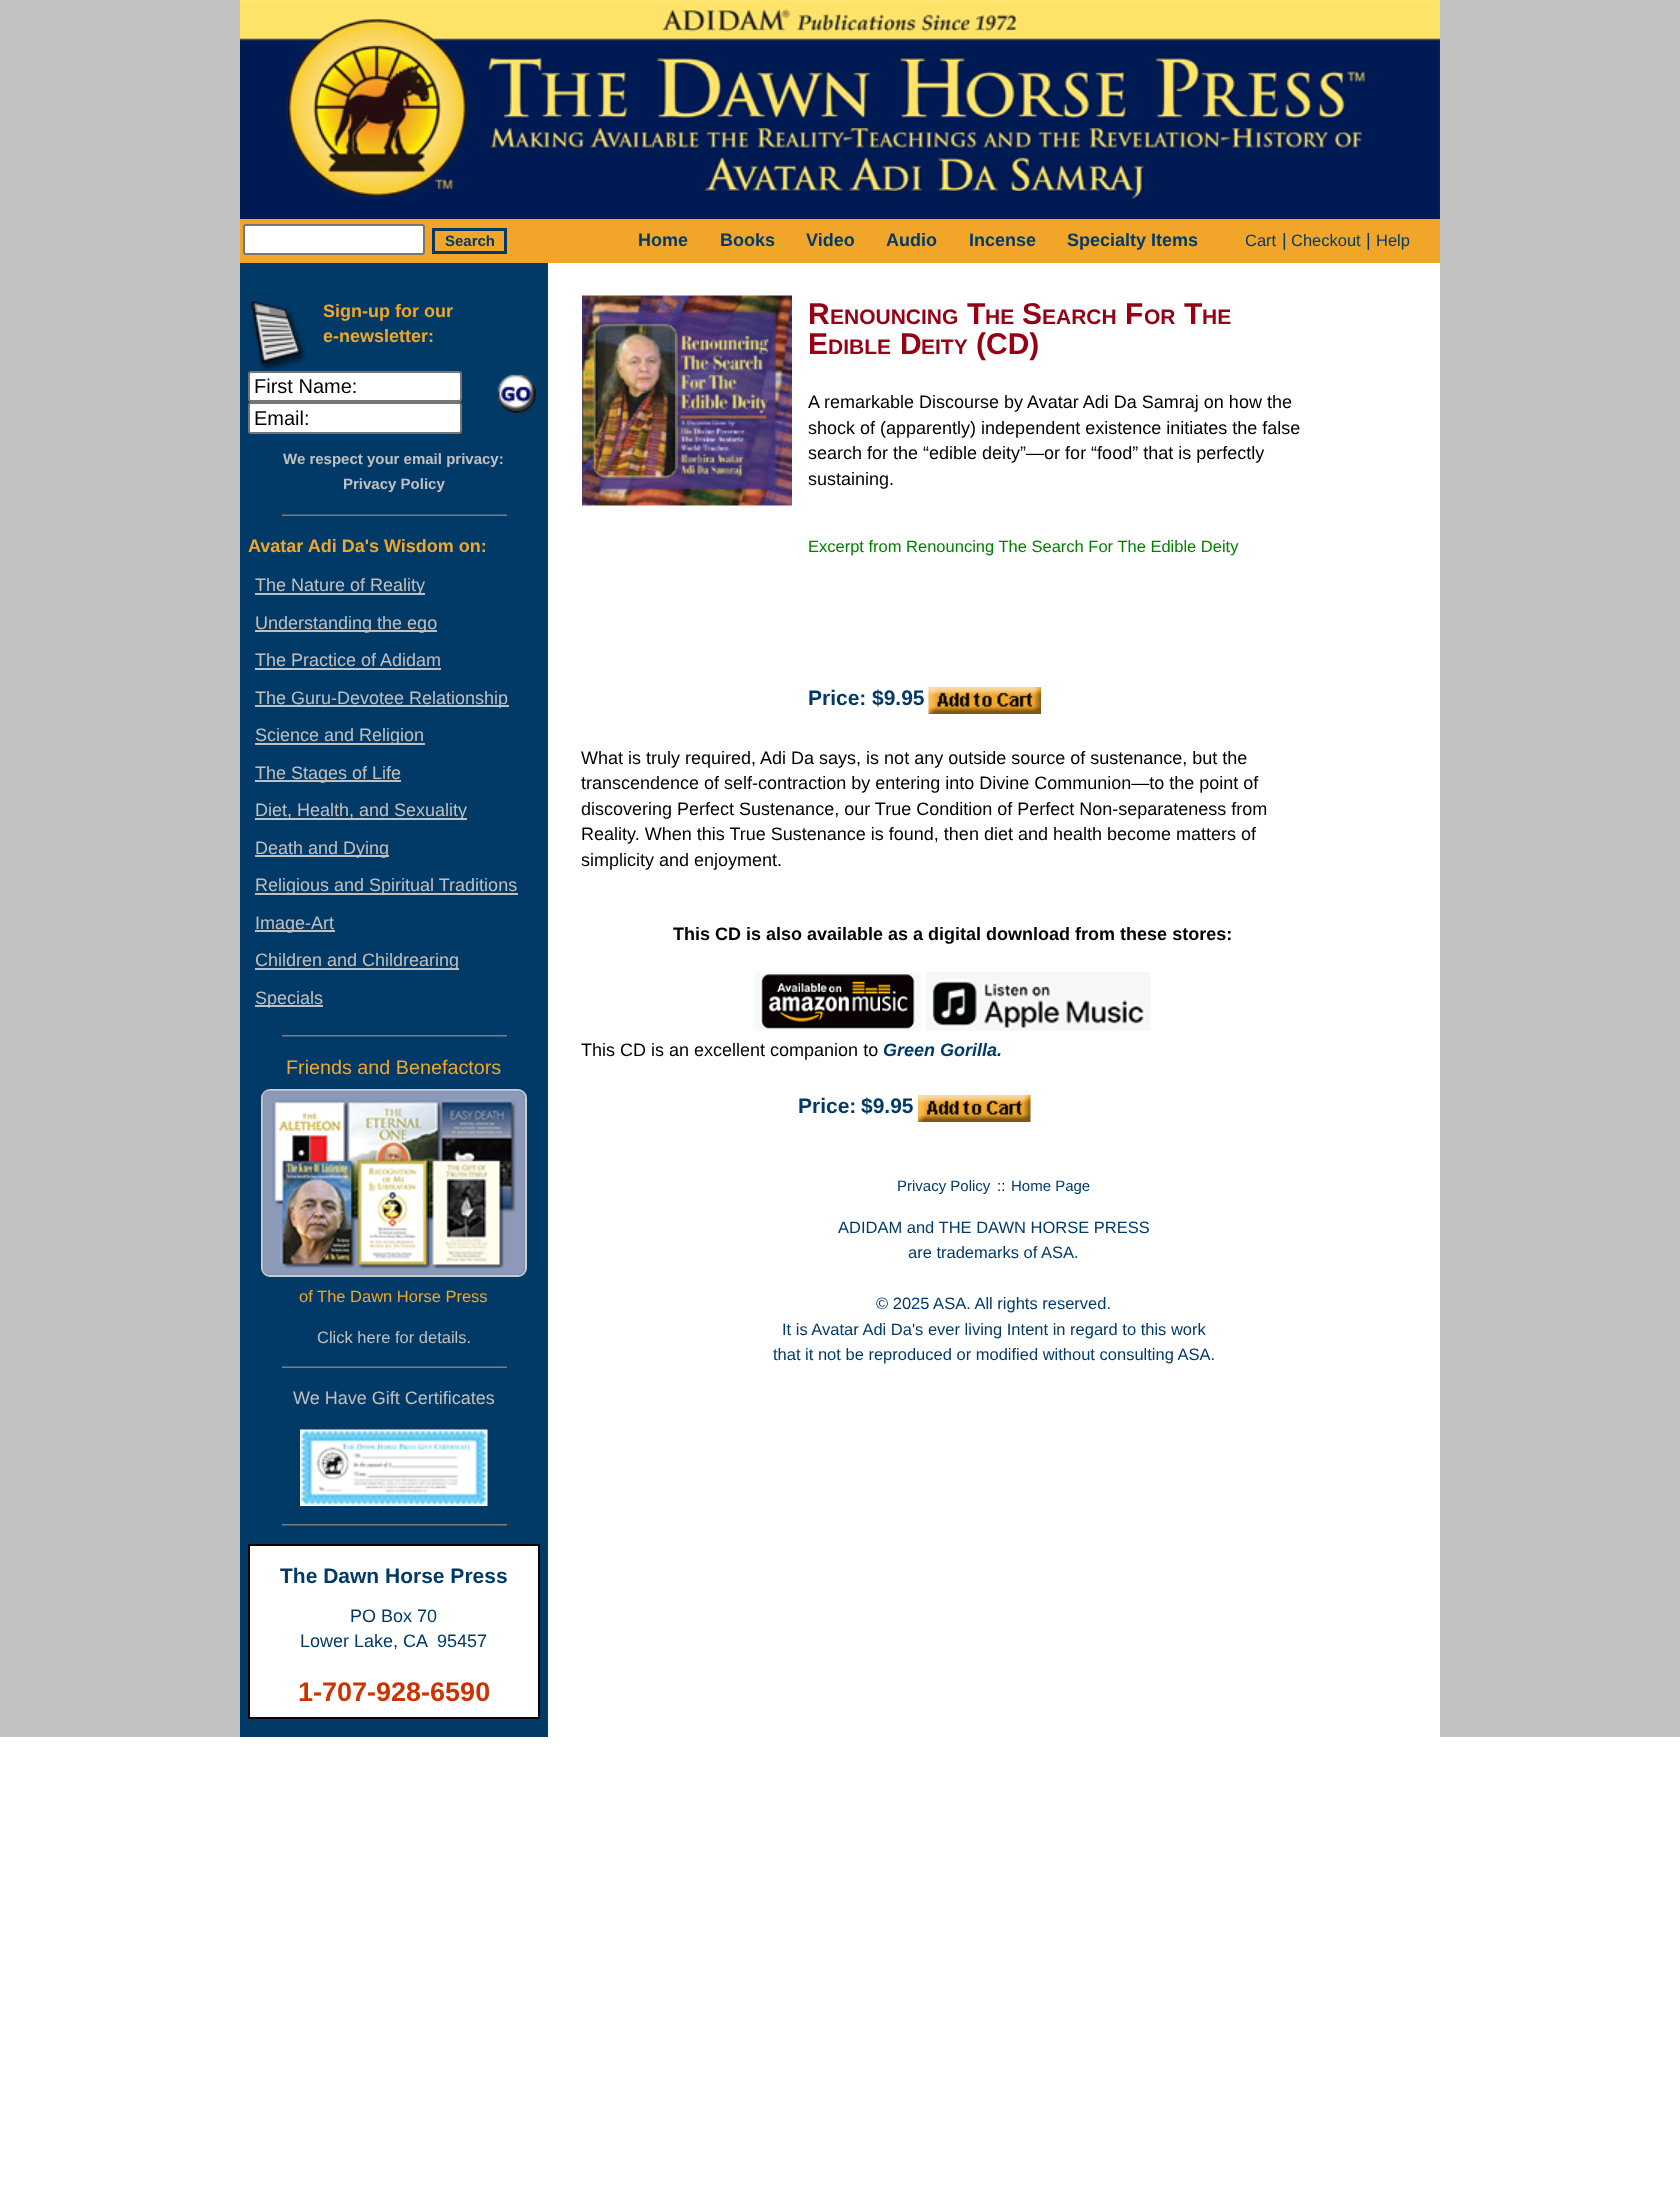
(async () => {
    const canvas = document.querySelector("canvas");
    canvas.width = 1680;
    canvas.height = 2196;
    const context = canvas.getContext("2d");
    context.miterLimit = 4;
    context.fontKerning = "normal";
    function write(s, x, y, font, color) {
        context.font = font;
        context.fillStyle = color;
        context.fillText(s, x, y);
    }
    function block(x, y, w, h, color) {
        context.fillStyle = color;
        context.fillRect(x, y, w, h);
    }
    async function photo(src, x, y, w, h) {
        const img = new Image();
        img.src = src;
        await img.decode();
        context.drawImage(img, x, y, w, h);
    }

    block(0, 0, 1680, 2196, "rgb(255, 255, 255)");
    block(0, 0, 240, 1737, "rgb(194, 194, 194)");
    await photo("media/1.png", 240, 0, 1200, 219);
    block(240, 219, 1200, 44, "rgb(241, 166, 41)");
    context.fillStyle = "rgb(255, 255, 255)";
    context.beginPath();
    context.roundRect(244, 225, 180, 29, 2);
    context.fill();
    context.strokeStyle = "rgb(118, 118, 118)";
    context.lineWidth = 2;
    context.stroke();
    context.strokeStyle = "rgb(2, 58, 103)";
    context.lineWidth = 3;
    context.strokeRect(433.5, 229.5, 72, 23);
    write("Search", 445, 246, "bold 15px Liberation Sans", "rgb(2, 58, 103)");
    write("Home", 638, 246, "bold 18px Liberation Sans", "rgb(2, 58, 103)");
    write("Books", 720, 246, "bold 18px Liberation Sans", "rgb(2, 58, 103)");
    write("Video", 806, 246, "bold 18px Liberation Sans", "rgb(2, 58, 103)");
    write("Audio", 886, 246, "bold 18px Liberation Sans", "rgb(2, 58, 103)");
    write("Incense", 969, 246, "bold 18px Liberation Sans", "rgb(2, 58, 103)");
    write("Specialty Items", 1067, 246, "bold 18px Liberation Sans", "rgb(2, 58, 103)");
    write("Cart", 1245, 246, "16.5px Liberation Sans", "rgb(2, 58, 103)");
    write("|", 1282, 246, "18px Liberation Sans", "rgb(2, 58, 103)");
    write("Checkout", 1291, 246, "16.5px Liberation Sans", "rgb(2, 58, 103)");
    write("|", 1366, 246, "18px Liberation Sans", "rgb(2, 58, 103)");
    write("Help", 1376, 246, "16.5px Liberation Sans", "rgb(2, 58, 103)");
    block(240, 263, 308, 1474, "rgb(2, 58, 103)");
    await photo("media/2.png", 247, 298, 61, 73);
    write("Sign-up for our", 323, 317, "bold 18px Liberation Sans", "rgb(241, 166, 41)");
    write("e-newsletter:", 323, 342, "bold 18px Liberation Sans", "rgb(241, 166, 41)");
    context.fillStyle = "rgb(255, 255, 255)";
    context.beginPath();
    context.roundRect(249, 372, 212, 29, 2);
    context.fill();
    context.strokeStyle = "rgb(118, 118, 118)";
    context.lineWidth = 2;
    context.stroke();
    write("First Name:", 254, 393, "20px Liberation Sans", "rgb(0, 0, 0)");
    await photo("media/3.png", 495, 370, 45, 46);
    context.fillStyle = "rgb(255, 255, 255)";
    context.beginPath();
    context.roundRect(249, 403, 212, 30, 2);
    context.fill();
    context.stroke();
    write("Email:", 254, 425, "20px Liberation Sans", "rgb(0, 0, 0)");
    write("We respect your email privacy:", 283, 464, "bold 15px Liberation Sans", "rgb(192, 192, 192)");
    write("Privacy Policy", 343, 489, "bold 15px Liberation Sans", "rgb(192, 192, 192)");
    await photo("media/4.png", 282, 514, 225, 2);
    write("Avatar Adi Da's Wisdom on:", 248, 552, "bold 18px Liberation Sans", "rgb(241, 166, 41)");
    block(255, 593, 170, 2, "rgb(192, 192, 192)");
    write("The Nature of Reality", 255, 591, "18px Liberation Sans", "rgb(192, 192, 192)");
    block(255, 630, 182, 2, "rgb(192, 192, 192)");
    write("Understanding the ego", 255, 629, "18px Liberation Sans", "rgb(192, 192, 192)");
    write("The Practice of Adidam", 255, 666, "18px Liberation Sans", "rgb(192, 192, 192)");
    block(255, 668, 186, 2, "rgb(192, 192, 192)");
    block(255, 705, 254, 2, "rgb(192, 192, 192)");
    write("The Guru-Devotee Relationship", 255, 704, "18px Liberation Sans", "rgb(192, 192, 192)");
    block(255, 743, 170, 2, "rgb(192, 192, 192)");
    write("Science and Religion", 255, 741, "18px Liberation Sans", "rgb(192, 192, 192)");
    block(255, 780, 146, 2, "rgb(192, 192, 192)");
    write("The Stages of Life", 255, 779, "18px Liberation Sans", "rgb(192, 192, 192)");
    block(255, 818, 212, 2, "rgb(192, 192, 192)");
    write("Diet, Health, and Sexuality", 255, 816, "18px Liberation Sans", "rgb(192, 192, 192)");
    block(255, 855, 134, 2, "rgb(192, 192, 192)");
    write("Death and Dying", 255, 854, "18px Liberation Sans", "rgb(192, 192, 192)");
    block(255, 893, 263, 2, "rgb(192, 192, 192)");
    write("Religious and Spiritual Traditions", 255, 891, "18px Liberation Sans", "rgb(192, 192, 192)");
    block(255, 930, 80, 2, "rgb(192, 192, 192)");
    write("Image-Art", 255, 929, "18px Liberation Sans", "rgb(192, 192, 192)");
    block(255, 968, 204, 2, "rgb(192, 192, 192)");
    write("Children and Childrearing", 255, 966, "18px Liberation Sans", "rgb(192, 192, 192)");
    block(255, 1005, 68, 2, "rgb(192, 192, 192)");
    write("Specials", 255, 1004, "18px Liberation Sans", "rgb(192, 192, 192)");
    await photo("media/5.png", 282, 1035, 225, 2);
    write("Friends and Benefactors", 286, 1074, "19.75px Liberation Sans", "rgb(241, 166, 41)");
    context.beginPath();
    context.roundRect(262, 1090, 264, 186, 8);
    context.strokeStyle = "rgb(204, 204, 204)";
    context.stroke();
    await photo("media/6.png", 262, 1090, 263, 185);
    write("of The Dawn Horse Press", 299, 1302, "16.5px Liberation Sans", "rgb(241, 166, 41)");
    write("Click here for details.", 317, 1343, "16.5px Liberation Sans", "rgb(192, 192, 192)");
    await photo("media/4.png", 282, 1366, 225, 2);
    write("We Have Gift Certificates", 293, 1404, "18px Liberation Sans", "rgb(192, 192, 192)");
    await photo("media/7.png", 300, 1429, 188, 77);
    await photo("media/5.png", 282, 1524, 225, 2);
    context.fillStyle = "rgb(255, 255, 255)";
    context.beginPath();
    context.rect(249, 1545, 290, 173);
    context.fill();
    context.strokeStyle = "rgb(17, 0, 0)";
    context.stroke();
    write("The Dawn Horse Press", 280, 1583, "bold 21px Liberation Sans", "rgb(2, 58, 103)");
    write("PO Box 70", 350, 1622, "18px Liberation Sans", "rgb(2, 58, 103)");
    write("Lower Lake, CA  95457", 300, 1647, "18px Liberation Sans", "rgb(2, 58, 103)");
    write("1-707-928-6590", 298, 1701, "bold 27px Liberation Sans", "rgb(204, 51, 0)");
    await photo("media/8.png", 582, 295, 210, 211);
    write("R", 808, 324, "bold 30px Liberation Sans", "rgb(150, 0, 20)");
    write("ENOUNCING", 830, 324, "bold 21px Liberation Sans", "rgb(150, 0, 20)");
    write("T", 967, 324, "bold 30px Liberation Sans", "rgb(150, 0, 20)");
    write("HE", 985, 324, "bold 21px Liberation Sans", "rgb(150, 0, 20)");
    write("S", 1022, 324, "bold 30px Liberation Sans", "rgb(150, 0, 20)");
    write("EARCH", 1042, 324, "bold 21px Liberation Sans", "rgb(150, 0, 20)");
    write("F", 1125, 324, "bold 30px Liberation Sans", "rgb(150, 0, 20)");
    write("OR", 1144, 324, "bold 21px Liberation Sans", "rgb(150, 0, 20)");
    write("T", 1184, 324, "bold 30px Liberation Sans", "rgb(150, 0, 20)");
    write("HE", 1202, 324, "bold 21px Liberation Sans", "rgb(150, 0, 20)");
    write("E", 808, 354, "bold 30px Liberation Sans", "rgb(150, 0, 20)");
    write("DIBLE", 828, 354, "bold 21px Liberation Sans", "rgb(150, 0, 20)");
    write("D", 900, 354, "bold 30px Liberation Sans", "rgb(150, 0, 20)");
    write("EITY", 921, 354, "bold 21px Liberation Sans", "rgb(150, 0, 20)");
    write("(CD)", 976, 354, "bold 30px Liberation Sans", "rgb(150, 0, 20)");
    write("A remarkable Discourse by Avatar Adi Da Samraj on how the", 808, 408, "18px Liberation Sans", "rgb(0, 0, 0)");
    write("shock of (apparently) independent existence initiates the false", 808, 434, "18px Liberation Sans", "rgb(0, 0, 0)");
    write("search for the “edible deity”—or for “food” that is perfectly", 808, 459, "18px Liberation Sans", "rgb(0, 0, 0)");
    write("sustaining.", 808, 485, "18px Liberation Sans", "rgb(0, 0, 0)");
    write("Excerpt from Renouncing The Search For The Edible Deity", 808, 552, "16.5px Liberation Sans", "rgb(0, 128, 0)");
    write("Price:", 808, 705, "bold 21px Liberation Sans", "rgb(2, 58, 103)");
    write("$9.95", 872, 705, "bold 21px Liberation Sans", "rgb(2, 58, 103)");
    await photo("media/9.png", 928, 687, 113, 27);
    write("What is truly required, Adi Da says, is not any outside source of sustenance, but the", 581, 764, "18px Liberation Sans", "rgb(0, 0, 0)");
    write("transcendence of self-contraction by entering into Divine Communion—to the point of", 581, 789, "18px Liberation Sans", "rgb(0, 0, 0)");
    write("discovering Perfect Sustenance, our True Condition of Perfect Non-separateness from", 581, 815, "18px Liberation Sans", "rgb(0, 0, 0)");
    write("Reality. When this True Sustenance is found, then diet and health become matters of", 581, 840, "18px Liberation Sans", "rgb(0, 0, 0)");
    write("simplicity and enjoyment.", 581, 866, "18px Liberation Sans", "rgb(0, 0, 0)");
    write("This CD is also available as a digital download from these stores:", 673, 940, "bold 18px Liberation Sans", "rgb(0, 0, 0)");
    await photo("media/10.png", 754, 972, 167, 59);
    await photo("media/11.png", 925, 972, 226, 59);
    write("This CD is an excellent companion to", 581, 1056, "18px Liberation Sans", "rgb(0, 0, 0)");
    write("Green Gorilla.", 883, 1056, "italic bold 18px Liberation Sans", "rgb(2, 58, 103)");
    write("Price:", 798, 1113, "bold 21px Liberation Sans", "rgb(2, 58, 103)");
    write("$9.95", 861, 1113, "bold 21px Liberation Sans", "rgb(2, 58, 103)");
    await photo("media/12.png", 918, 1095, 113, 27);
    write("Privacy Policy", 897, 1191, "15px Liberation Sans", "rgb(2, 58, 103)");
    write("::", 997, 1191, "15px Liberation Sans", "rgb(17, 0, 0)");
    write("Home Page", 1011, 1191, "15px Liberation Sans", "rgb(2, 58, 103)");
    write("ADIDAM and THE DAWN HORSE PRESS", 838, 1233, "16.5px Liberation Sans", "rgb(2, 58, 103)");
    write("are trademarks of ASA.", 908, 1258, "16.5px Liberation Sans", "rgb(2, 58, 103)");
    write("© 2025 ASA. All rights reserved.", 876, 1309, "16.5px Liberation Sans", "rgb(2, 58, 103)");
    write("It is Avatar Adi Da's ever living Intent in regard to this work", 782, 1335, "16.5px Liberation Sans", "rgb(2, 58, 103)");
    write("that it not be reproduced or modified without consulting ASA.", 773, 1360, "16.5px Liberation Sans", "rgb(2, 58, 103)");
    block(1440, 0, 240, 1737, "rgb(194, 194, 194)");
})();
